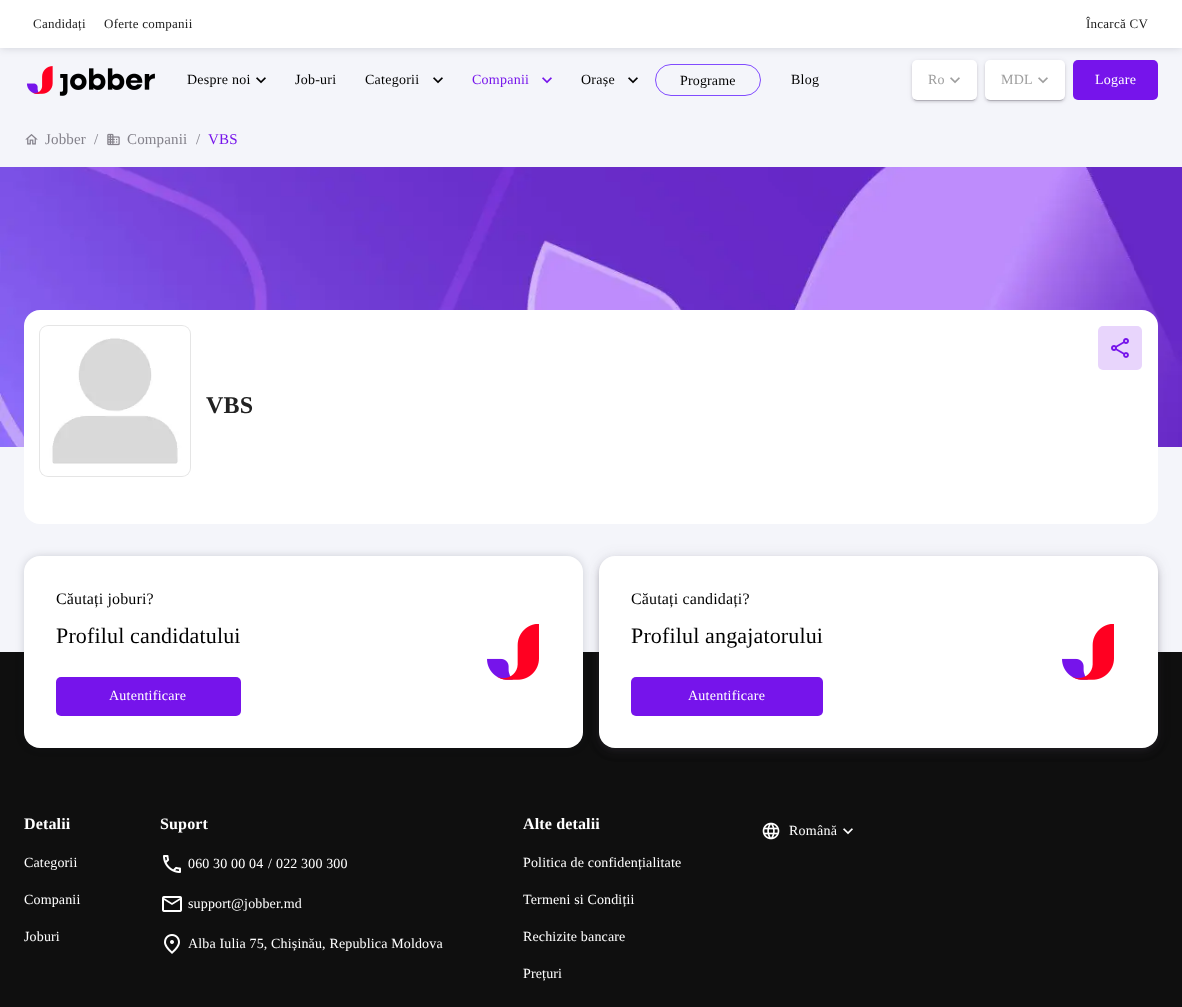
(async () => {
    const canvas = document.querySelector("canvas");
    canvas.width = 1182;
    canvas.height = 1007;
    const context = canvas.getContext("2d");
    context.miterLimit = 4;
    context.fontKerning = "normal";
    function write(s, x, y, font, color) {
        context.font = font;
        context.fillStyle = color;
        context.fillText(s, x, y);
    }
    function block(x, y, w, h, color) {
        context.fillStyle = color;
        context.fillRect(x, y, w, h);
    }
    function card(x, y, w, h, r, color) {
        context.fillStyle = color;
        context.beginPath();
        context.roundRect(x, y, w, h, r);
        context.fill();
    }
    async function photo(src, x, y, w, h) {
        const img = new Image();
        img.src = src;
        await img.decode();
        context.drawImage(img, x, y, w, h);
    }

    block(0, 0, 1182, 1007, "rgb(244, 245, 250)");
    context.fillStyle = "rgba(17, 24, 40, 0.16)";
    context.filter = "blur(4px)";
    context.beginPath();
    context.rect(0, 0, 1182, 48);
    context.fill();
    context.filter = "none";
    block(0, 0, 1182, 48, "rgb(255, 255, 255)");
    context.letterSpacing = "0.25px";
    write("Candidați", 33, 28, "13px Liberation Serif", "rgb(33, 33, 33)");
    write("Oferte companii", 104, 28, "13px Liberation Serif", "rgb(33, 33, 33)");
    write("Încarcă CV", 1086, 28, "13px Liberation Serif", "rgb(33, 33, 33)");
    await photo("media/1.png", 26, 66, 129, 30);
    write("Despre noi", 187, 84, "14px Liberation Serif", "rgb(0, 0, 0)");
    await photo("media/2.png", 256, 77, 10, 7);
    write("Job-uri", 295, 84, "14px Liberation Serif", "rgb(0, 0, 0)");
    write("Categorii", 365, 84, "14px Liberation Serif", "rgb(0, 0, 0)");
    await photo("media/2.png", 433, 77, 10, 7);
    write("Companii", 472, 84, "14px Liberation Serif", "rgb(118, 20, 235)");
    await photo("media/3.png", 542, 77, 10, 7);
    write("Orașe", 581, 84, "14px Liberation Serif", "rgb(0, 0, 0)");
    await photo("media/2.png", 628, 77, 10, 7);
    context.beginPath();
    context.roundRect(655.5, 64.5, 105, 31, 15.5);
    context.strokeStyle = "rgb(129, 75, 255)";
    context.stroke();
    context.letterSpacing = "0.15px";
    write("Programe", 680, 85, "14px Liberation Serif", "rgb(0, 0, 0)");
    context.letterSpacing = "0.25px";
    write("Blog", 791, 84, "14px Liberation Serif", "rgb(0, 0, 0)");
    context.fillStyle = "rgba(58, 53, 65, 0.12)";
    context.filter = "blur(2.5px)";
    context.beginPath();
    context.roundRect(912, 61, 65, 40, 5);
    context.fill();
    context.filter = "none";
    context.fillStyle = "rgba(58, 53, 65, 0.14)";
    context.filter = "blur(1px)";
    context.beginPath();
    context.roundRect(912, 62, 65, 40, 5);
    context.fill();
    context.filter = "none";
    context.fillStyle = "rgba(58, 53, 65, 0.2)";
    context.filter = "blur(0.5px)";
    context.beginPath();
    context.roundRect(914, 65, 61, 36, 3);
    context.fill();
    context.filter = "none";
    card(912, 60, 65, 40, 5, "rgb(255, 255, 255)");
    write("Ro", 928, 84, "14px Liberation Serif", "rgb(158, 158, 158)");
    await photo("media/4.png", 950, 77, 10, 7);
    context.fillStyle = "rgba(58, 53, 65, 0.12)";
    context.filter = "blur(2.5px)";
    context.beginPath();
    context.roundRect(985, 61, 80, 40, 5);
    context.fill();
    context.filter = "none";
    context.fillStyle = "rgba(58, 53, 65, 0.14)";
    context.filter = "blur(1px)";
    context.beginPath();
    context.roundRect(985, 62, 80, 40, 5);
    context.fill();
    context.filter = "none";
    context.fillStyle = "rgba(58, 53, 65, 0.2)";
    context.filter = "blur(0.5px)";
    context.beginPath();
    context.roundRect(987, 65, 76, 36, 3);
    context.fill();
    context.filter = "none";
    card(985, 60, 80, 40, 5, "rgb(255, 255, 255)");
    write("MDL", 1001, 84, "14px Liberation Serif", "rgb(158, 158, 158)");
    await photo("media/4.png", 1038, 77, 10, 7);
    card(1073, 60, 85, 40, 5, "rgb(118, 20, 235)");
    write("Logare", 1095, 84, "14px Liberation Serif", "rgb(255, 255, 255)");
    await photo("media/5.png", 25, 134, 13, 11);
    context.letterSpacing = "0.15px";
    write("Jobber", 45, 144, "15px Liberation Serif", "rgb(132, 130, 139)");
    write("/", 94, 144, "15px Liberation Serif", "rgb(132, 130, 139)");
    await photo("media/6.png", 107, 133, 13, 13);
    write("Companii", 127, 144, "15px Liberation Serif", "rgb(132, 130, 139)");
    write("/", 196, 144, "15px Liberation Serif", "rgb(132, 130, 139)");
    write("VBS", 208, 144, "15px Liberation Serif", "rgb(118, 20, 235)");
    await photo("media/7.png", 0, 167, 1182, 280);
    card(24, 310, 1134, 214, 16, "rgb(255, 255, 255)");
    context.fillStyle = "rgba(0, 0, 0, 0.1)";
    context.filter = "blur(0.5px)";
    context.beginPath();
    context.roundRect(39, 325, 152, 152, 9);
    context.fill();
    context.filter = "none";
    await photo("media/8.png", 40, 326, 150, 150);
    card(1098, 326, 44, 44, 5, "rgb(232, 213, 252)");
    await photo("media/9.png", 1111, 338, 18, 20);
    write("VBS", 206, 413, "bold 24px Liberation Serif", "rgb(33, 33, 33)");
    block(0, 652, 1182, 355, "rgb(15, 15, 15)");
    context.fillStyle = "rgba(17, 24, 40, 0.16)";
    context.filter = "blur(4px)";
    context.beginPath();
    context.roundRect(24, 556, 559, 192, 16);
    context.fill();
    context.filter = "none";
    card(24, 556, 559, 192, 16, "rgb(255, 255, 255)");
    write("Căutați joburi?", 56, 604, "16px Liberation Serif", "rgb(0, 0, 0)");
    write("Profilul candidatului", 56, 643, "22px Liberation Serif", "rgb(0, 0, 0)");
    card(56, 677, 185, 39, 5, "rgb(118, 20, 235)");
    context.letterSpacing = "0.25px";
    write("Autentificare", 109, 700, "14px Liberation Serif", "rgb(255, 255, 255)");
    await photo("media/10.png", 487, 624, 52, 56);
    context.fillStyle = "rgba(58, 53, 65, 0.12)";
    context.filter = "blur(7px)";
    context.beginPath();
    context.roundRect(599, 557, 559, 192, 16);
    context.fill();
    context.filter = "none";
    context.fillStyle = "rgba(58, 53, 65, 0.14)";
    context.filter = "blur(4px)";
    context.beginPath();
    context.roundRect(599, 561, 559, 192, 16);
    context.fill();
    context.filter = "none";
    context.fillStyle = "rgba(58, 53, 65, 0.2)";
    context.filter = "blur(2.5px)";
    context.beginPath();
    context.roundRect(600, 560, 557, 190, 15);
    context.fill();
    context.filter = "none";
    card(599, 556, 559, 192, 16, "rgb(255, 255, 255)");
    context.letterSpacing = "0.15px";
    write("Căutați candidați?", 631, 604, "16px Liberation Serif", "rgb(0, 0, 0)");
    write("Profilul angajatorului", 631, 643, "22px Liberation Serif", "rgb(0, 0, 0)");
    card(631, 677, 192, 39, 5, "rgb(118, 20, 235)");
    context.letterSpacing = "0.25px";
    write("Autentificare", 688, 700, "14px Liberation Serif", "rgb(255, 255, 255)");
    await photo("media/10.png", 1062, 624, 52, 56);
    context.letterSpacing = "0.15px";
    write("Detalii", 24, 829, "bold 16px Liberation Serif", "rgb(255, 255, 255)");
    write("Categorii", 24, 867, "14px Liberation Serif", "rgb(255, 255, 255)");
    write("Companii", 24, 904, "14px Liberation Serif", "rgb(255, 255, 255)");
    write("Joburi", 24, 941, "14px Liberation Serif", "rgb(255, 255, 255)");
    write("Suport", 160, 829, "bold 16px Liberation Serif", "rgb(255, 255, 255)");
    await photo("media/11.png", 163, 855, 18, 18);
    write("060 30 00 04", 188, 868, "14px Liberation Serif", "rgb(255, 255, 255)");
    write("/", 268, 868, "14px Liberation Serif", "rgb(255, 255, 255)");
    write("022 300 300", 276, 868, "14px Liberation Serif", "rgb(255, 255, 255)");
    await photo("media/12.png", 162, 896, 20, 16);
    write("support@jobber.md", 188, 908, "14px Liberation Serif", "rgb(255, 255, 255)");
    await photo("media/13.png", 164, 934, 16, 20);
    write("Alba Iulia 75, Chișinău, Republica Moldova", 188, 948, "14px Liberation Serif", "rgb(255, 255, 255)");
    write("Alte detalii", 523, 829, "bold 16px Liberation Serif", "rgb(255, 255, 255)");
    write("Politica de confidențialitate", 523, 867, "14px Liberation Serif", "rgb(255, 255, 255)");
    write("Termeni si Condiții", 523, 904, "14px Liberation Serif", "rgb(255, 255, 255)");
    write("Rechizite bancare", 523, 941, "14px Liberation Serif", "rgb(255, 255, 255)");
    write("Prețuri", 523, 978, "14px Liberation Serif", "rgb(255, 255, 255)");
    await photo("media/14.png", 762, 822, 18, 18);
    context.letterSpacing = "0.25px";
    write("Română", 789, 835, "14px Liberation Serif", "rgb(255, 255, 255)");
    await photo("media/15.png", 843, 828, 10, 7);
})();
